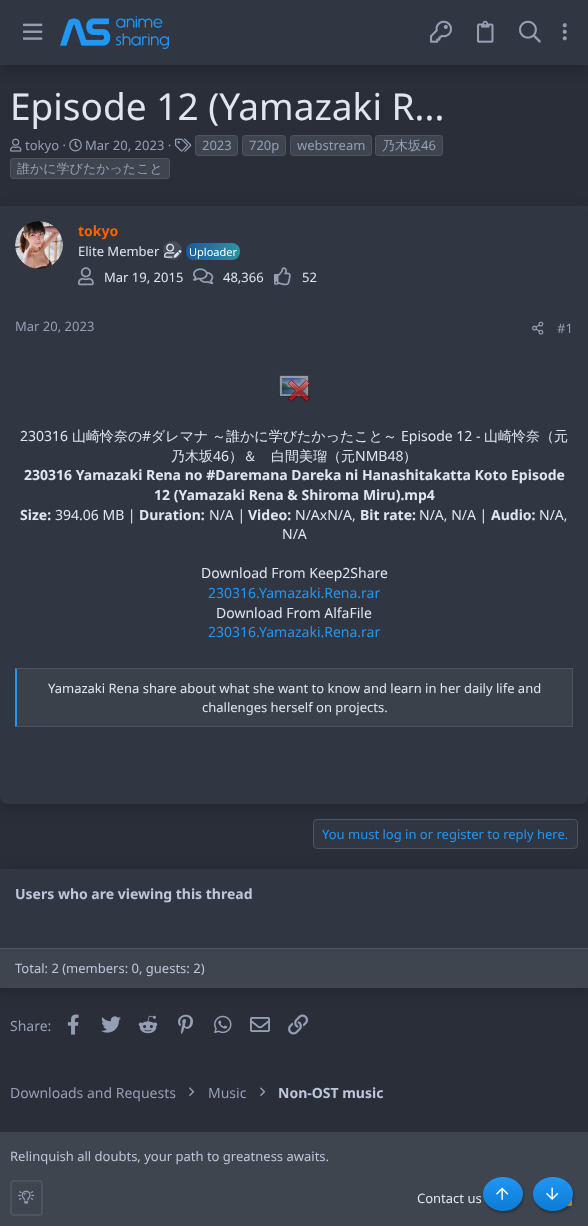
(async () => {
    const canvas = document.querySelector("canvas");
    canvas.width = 588;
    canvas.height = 1226;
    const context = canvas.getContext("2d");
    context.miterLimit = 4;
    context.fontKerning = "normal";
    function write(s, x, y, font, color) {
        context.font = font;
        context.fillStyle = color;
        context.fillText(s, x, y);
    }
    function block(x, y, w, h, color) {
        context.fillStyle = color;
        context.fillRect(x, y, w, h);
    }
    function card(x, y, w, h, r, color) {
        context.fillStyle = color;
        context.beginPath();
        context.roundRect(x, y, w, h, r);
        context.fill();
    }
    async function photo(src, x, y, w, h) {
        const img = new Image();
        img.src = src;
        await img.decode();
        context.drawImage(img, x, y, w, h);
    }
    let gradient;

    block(0, 0, 588, 1226, "rgb(41, 46, 57)");
    context.fillStyle = "rgba(0, 0, 0, 0.2)";
    context.filter = "blur(7.5px)";
    context.beginPath();
    context.rect(0, 4, 588, 65);
    context.fill();
    context.filter = "none";
    block(0, 0, 588, 65, "rgb(49, 55, 66)");
    await photo("media/1.png", 23, 23, 20, 17);
    await photo("media/2.png", 60, 16, 109, 33);
    await photo("media/3.png", 430, 20, 22, 23);
    await photo("media/4.png", 477, 20, 17, 23);
    await photo("media/5.png", 519, 20, 22, 23);
    await photo("media/6.png", 562, 23, 5, 18);
    write("Episode 12 (Yamazaki R...", 10, 120, "37px Noto Sans", "rgb(224, 230, 240)");
    await photo("media/7.png", 175, 138, 17, 14);
    context.fillStyle = "rgb(63, 69, 79)";
    context.beginPath();
    context.roundRect(195.5, 135.5, 42, 20, 2.5);
    context.fill();
    context.strokeStyle = "rgb(77, 84, 96)";
    context.stroke();
    write("2023", 202, 150, "13px Noto Sans", "rgb(149, 159, 180)");
    context.fillStyle = "rgb(63, 69, 79)";
    context.beginPath();
    context.roundRect(242.5, 135.5, 43, 20, 2.5);
    context.fill();
    context.stroke();
    write("720p", 249, 150, "13px Noto Sans", "rgb(149, 159, 180)");
    context.fillStyle = "rgb(63, 69, 79)";
    context.beginPath();
    context.roundRect(290.5, 135.5, 81, 20, 2.5);
    context.fill();
    context.stroke();
    write("webstream", 297, 150, "13px Noto Sans", "rgb(149, 159, 180)");
    context.fillStyle = "rgb(63, 69, 79)";
    context.beginPath();
    context.roundRect(375.5, 135.5, 67, 20, 2.5);
    context.fill();
    context.stroke();
    write("乃木坂", 382, 150, "500 13px WenQuanYi Zen Hei", "rgb(149, 159, 180)");
    write("46", 421, 150, "13px Noto Sans", "rgb(149, 159, 180)");
    context.fillStyle = "rgb(63, 69, 79)";
    context.beginPath();
    context.roundRect(10.5, 158.5, 159, 20, 2.5);
    context.fill();
    context.stroke();
    write("誰かに学びたかったこと", 17, 173, "500 13px WenQuanYi Zen Hei", "rgb(149, 159, 180)");
    await photo("media/8.png", 10, 138, 12, 14);
    write("tokyo ·", 25, 150, "13px Noto Sans", "rgb(149, 159, 180)");
    await photo("media/9.png", 69, 138, 13, 14);
    write("Mar 20, 2023 ·", 85, 150, "13px Noto Sans", "rgb(149, 159, 180)");
    context.fillStyle = "rgba(0, 0, 0, 0.2)";
    context.filter = "blur(7.5px)";
    context.beginPath();
    context.roundRect(0, 210, 588, 598, 8);
    context.fill();
    context.filter = "none";
    card(0, 206, 588, 598, 8, "rgb(49, 55, 66)");
    block(0, 206, 588, 6, "rgb(49, 55, 66)");
    await photo("media/10.png", 15, 221, 48, 48);
    write("tokyo", 78, 236, "bold 14px Noto Sans", "rgb(255, 97, 3)");
    write("Elite Member", 78, 256, "13px Noto Sans", "rgb(224, 230, 240)");
    context.fillStyle = "rgb(70, 76, 88)";
    context.beginPath();
    context.arc(172.5, 250.5, 9.5, 0, Math.PI * 2);
    context.fill();
    await photo("media/11.png", 164, 243, 18, 15);
    gradient = context.createLinearGradient(186, 252, 294, 252);
    gradient.addColorStop(0, "rgb(24, 90, 157)");
    gradient.addColorStop(1, "rgb(67, 206, 162)");
    context.fillStyle = gradient;
    context.beginPath();
    context.roundRect(186, 243, 54, 17, 8);
    context.fill();
    write("Uploader", 189, 256, "11px Noto Sans", "rgb(255, 255, 255)");
    await photo("media/12.png", 78, 267, 16, 19);
    write("Mar 19, 2015", 104, 282, "13px Noto Sans", "rgb(224, 230, 240)");
    await photo("media/13.png", 193, 268, 21, 17);
    write("48,366", 223, 282, "13px Noto Sans", "rgb(224, 230, 240)");
    await photo("media/14.png", 274, 267, 17, 19);
    write("52", 302, 282, "13px Noto Sans", "rgb(224, 230, 240)");
    write("Mar 20, 2023", 15, 331, "13px Noto Sans", "rgb(149, 159, 180)");
    await photo("media/15.png", 532, 321, 12, 14);
    write("#1", 557, 333, "13px Noto Sans", "rgb(149, 159, 180)");
    await photo("media/16.png", 279, 375, 31, 27);
    write("230316", 20, 441, "14px Noto Sans", "rgb(224, 230, 240)");
    write("⼭崎怜奈の", 72, 441, "500 14px WenQuanYi Zen Hei", "rgb(224, 230, 240)");
    write("#", 142, 441, "14px Noto Sans", "rgb(224, 230, 240)");
    write("ダレマナ", 151, 441, "500 14px WenQuanYi Zen Hei", "rgb(224, 230, 240)");
    write("～誰かに学びたかったこと～", 212, 441, "500 14px WenQuanYi Zen Hei", "rgb(224, 230, 240)");
    write("Episode 12 -", 401, 441, "14px Noto Sans", "rgb(224, 230, 240)");
    write("⼭崎怜奈（元", 484, 441, "500 14px WenQuanYi Zen Hei", "rgb(224, 230, 240)");
    write("乃木坂", 171, 461, "500 14px WenQuanYi Zen Hei", "rgb(224, 230, 240)");
    write("46", 213, 461, "14px Noto Sans", "rgb(224, 230, 240)");
    write("）＆　白間美瑠（元", 229, 461, "500 14px WenQuanYi Zen Hei", "rgb(224, 230, 240)");
    write("NMB48", 355, 461, "14px Noto Sans", "rgb(224, 230, 240)");
    write("）", 403, 461, "500 14px WenQuanYi Zen Hei", "rgb(224, 230, 240)");
    write("230316 Yamazaki Rena no #Daremana Dareka ni Hanashitakatta Koto Episode", 24, 480, "bold 14px Noto Sans", "rgb(224, 230, 240)");
    write("12 (Yamazaki Rena & Shiroma Miru).mp4", 154, 500, "bold 14px Noto Sans", "rgb(224, 230, 240)");
    write("Size:", 20, 520, "bold 14px Noto Sans", "rgb(224, 230, 240)");
    write("394.06 MB |", 55, 520, "14px Noto Sans", "rgb(224, 230, 240)");
    write("Duration:", 139, 520, "bold 14px Noto Sans", "rgb(224, 230, 240)");
    write("N/A |", 209, 520, "14px Noto Sans", "rgb(224, 230, 240)");
    write("Video:", 248, 520, "bold 14px Noto Sans", "rgb(224, 230, 240)");
    write("N/AxN/A,", 295, 520, "14px Noto Sans", "rgb(224, 230, 240)");
    write("Bit rate:", 360, 520, "bold 14px Noto Sans", "rgb(224, 230, 240)");
    write("N/A, N/A |", 419, 520, "14px Noto Sans", "rgb(224, 230, 240)");
    write("Audio:", 491, 520, "bold 14px Noto Sans", "rgb(224, 230, 240)");
    write("N/A,", 539, 520, "14px Noto Sans", "rgb(224, 230, 240)");
    write("N/A", 282, 539, "14px Noto Sans", "rgb(224, 230, 240)");
    write("Download From Keep2Share", 201, 578, "14px Noto Sans", "rgb(224, 230, 240)");
    write("230316.Yamazaki.Rena.rar", 208, 598, "14px Noto Sans", "rgb(33, 150, 243)");
    write("Download From AlfaFile", 216, 618, "14px Noto Sans", "rgb(224, 230, 240)");
    write("230316.Yamazaki.Rena.rar", 208, 637, "14px Noto Sans", "rgb(33, 150, 243)");
    block(17, 669, 555, 57, "rgb(59, 65, 75)");
    context.fillStyle = "rgb(77, 84, 96)";
    context.beginPath();
    context.moveTo(15, 668);
    context.lineTo(573, 668);
    context.lineTo(572, 669);
    context.lineTo(17, 669);
    context.closePath();
    context.fill();
    block(572, 668, 1, 59, "rgb(77, 84, 96)");
    context.beginPath();
    context.moveTo(573, 727);
    context.lineTo(15, 727);
    context.lineTo(17, 726);
    context.lineTo(572, 726);
    context.closePath();
    context.fill();
    context.fillStyle = "rgb(33, 150, 243)";
    context.beginPath();
    context.moveTo(15, 727);
    context.lineTo(15, 668);
    context.lineTo(17, 669);
    context.lineTo(17, 726);
    context.closePath();
    context.fill();
    write("Yamazaki Rena share about what she want to know and learn in her daily life and", 48, 693, "13px Noto Sans", "rgb(224, 230, 240)");
    write("challenges herself on projects.", 202, 712, "13px Noto Sans", "rgb(224, 230, 240)");
    context.fillStyle = "rgb(49, 55, 66)";
    context.beginPath();
    context.roundRect(313.5, 819.5, 264, 29, 3.5);
    context.fill();
    context.stroke();
    write("You must log in or register to reply here.", 322, 839, "13px Noto Sans", "rgb(33, 150, 243)");
    context.fillStyle = "rgba(0, 0, 0, 0.2)";
    context.filter = "blur(7.5px)";
    context.beginPath();
    context.rect(0, 873, 588, 119);
    context.fill();
    context.filter = "none";
    block(0, 869, 588, 79, "rgb(49, 55, 66)");
    write("Users who are viewing this thread", 15, 899, "bold 14px Noto Sans", "rgb(189, 198, 219)");
    block(0, 949, 588, 39, "rgb(63, 69, 79)");
    block(0, 948, 588, 1, "rgb(77, 84, 96)");
    write("Total: 2 (members: 0, guests: 2)", 15, 973, "13px Noto Sans", "rgb(189, 198, 219)");
    write("Share:", 10, 1031, "14px Noto Sans", "rgb(149, 159, 180)");
    await photo("media/17.png", 67, 1014, 12, 21);
    await photo("media/18.png", 101, 1016, 20, 17);
    await photo("media/19.png", 138, 1015, 20, 19);
    await photo("media/20.png", 178, 1014, 15, 21);
    await photo("media/21.png", 214, 1015, 18, 19);
    await photo("media/22.png", 250, 1017, 20, 15);
    await photo("media/23.png", 288, 1014, 20, 21);
    write("Downloads and Requests", 10, 1098, "14px Noto Sans", "rgb(149, 159, 180)");
    await photo("media/24.png", 189, 1087, 6, 9);
    write("Music", 208, 1098, "14px Noto Sans", "rgb(149, 159, 180)");
    await photo("media/24.png", 260, 1087, 6, 9);
    write("Non-OST music", 278, 1098, "bold 14px Noto Sans", "rgb(189, 198, 219)");
    block(0, 1132, 588, 94, "rgb(63, 69, 79)");
    write("Relinquish all doubts, your path to greatness awaits.", 10, 1161, "13px Noto Sans", "rgb(189, 198, 219)");
    context.beginPath();
    context.roundRect(11, 1181, 31, 34, 3);
    context.lineWidth = 2;
    context.stroke();
    await photo("media/25.png", 18, 1190, 17, 14);
    write("Contact us", 417, 1203, "13px Noto Sans", "rgb(224, 230, 240)");
    card(557, 1191, 15, 15, 2, "rgb(255, 165, 0)");
    context.fillStyle = "rgba(0, 0, 0, 0.25)";
    context.filter = "blur(1px)";
    context.beginPath();
    context.roundRect(484, 1179, 40, 34, 17);
    context.fill();
    context.filter = "none";
    gradient = context.createLinearGradient(503, 1177, 503, 1211);
    gradient.addColorStop(0, "rgb(33, 150, 243)");
    gradient.addColorStop(1, "rgb(12, 124, 213)");
    context.fillStyle = gradient;
    context.beginPath();
    context.ellipse(503, 1194, 20, 17, 0, 0, Math.PI * 2);
    context.fill();
    await photo("media/26.png", 496, 1187, 13, 13);
    context.fillStyle = "rgba(0, 0, 0, 0.25)";
    context.filter = "blur(1px)";
    context.beginPath();
    context.roundRect(534, 1179, 40, 34, 17);
    context.fill();
    context.filter = "none";
    gradient = context.createLinearGradient(553, 1177, 553, 1211);
    gradient.addColorStop(0, "rgb(33, 150, 243)");
    gradient.addColorStop(1, "rgb(12, 124, 213)");
    context.fillStyle = gradient;
    context.beginPath();
    context.ellipse(553, 1194, 20, 17, 0, 0, Math.PI * 2);
    context.fill();
    await photo("media/27.png", 546, 1187, 13, 13);
})();
